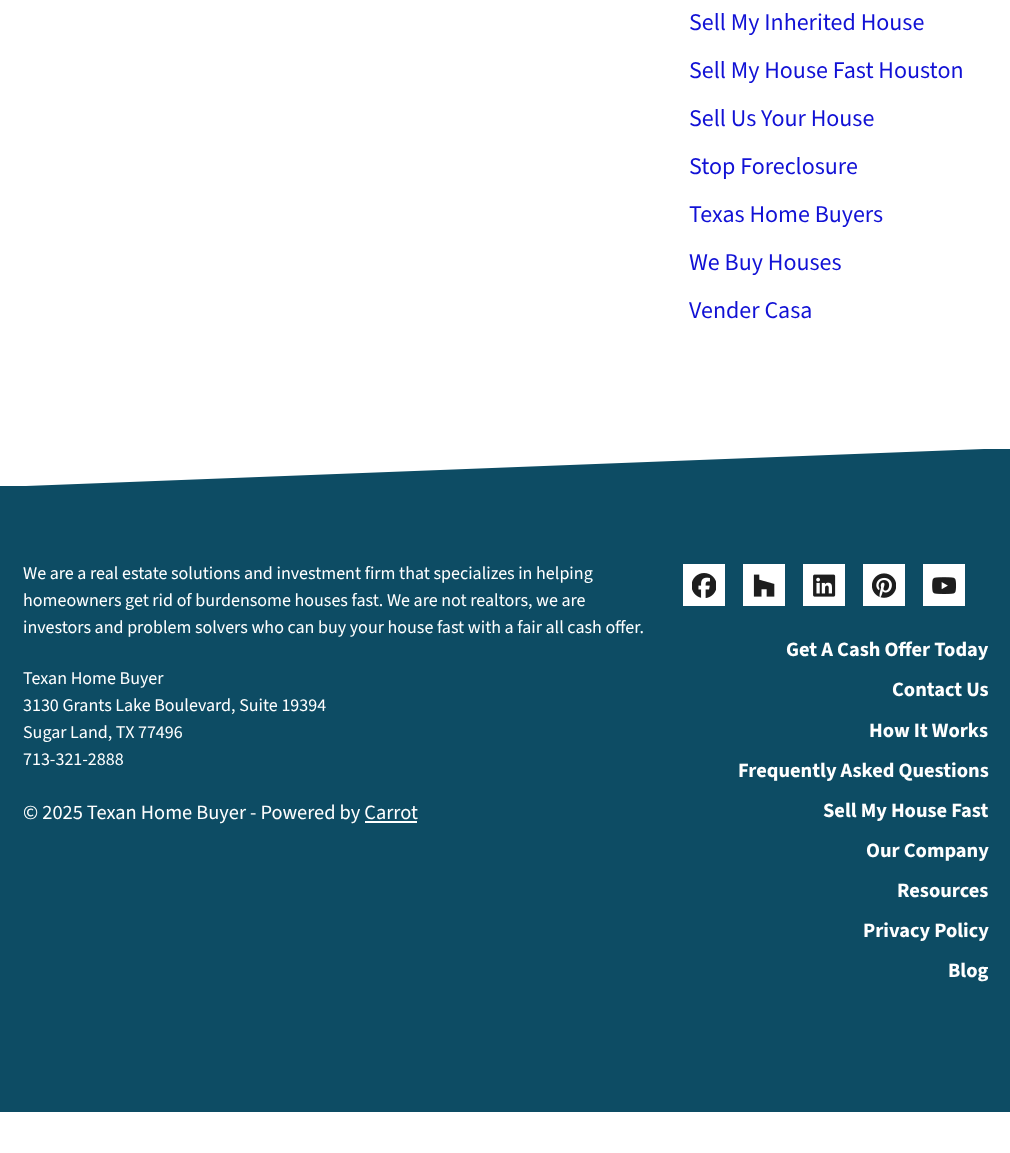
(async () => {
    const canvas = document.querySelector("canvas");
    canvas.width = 1010;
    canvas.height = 1153;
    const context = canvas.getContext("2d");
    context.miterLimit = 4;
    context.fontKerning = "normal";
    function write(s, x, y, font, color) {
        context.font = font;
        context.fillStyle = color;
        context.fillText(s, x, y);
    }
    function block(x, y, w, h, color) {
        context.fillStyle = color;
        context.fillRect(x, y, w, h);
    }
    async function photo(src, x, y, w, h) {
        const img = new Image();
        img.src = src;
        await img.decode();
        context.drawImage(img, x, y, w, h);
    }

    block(0, 0, 1010, 1153, "rgb(255, 255, 255)");
    write("Sell My Inherited House", 689, 30, "24px 'Source Sans 3'", "rgb(17, 17, 213)");
    write("Sell My House Fast Houston", 689, 78, "24px 'Source Sans 3'", "rgb(17, 17, 213)");
    write("Sell Us Your House", 689, 126, "24px 'Source Sans 3'", "rgb(17, 17, 213)");
    write("Stop Foreclosure", 689, 174, "24px 'Source Sans 3'", "rgb(17, 17, 213)");
    write("Texas Home Buyers", 689, 222, "24px 'Source Sans 3'", "rgb(17, 17, 213)");
    write("We Buy Houses", 689, 270, "24px 'Source Sans 3'", "rgb(17, 17, 213)");
    write("Vender Casa", 689, 318, "24px 'Source Sans 3'", "rgb(17, 17, 213)");
    block(0, 449, 1010, 663, "rgb(13, 76, 100)");
    context.save();
    context.beginPath();
    context.rect(0, 446, 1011, 40);
    context.clip();
    context.fillStyle = "rgb(255, 255, 255)";
    context.beginPath();
    context.moveTo(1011, 448);
    context.lineTo(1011, 446);
    context.lineTo(0, 446);
    context.lineTo(0, 487);
    context.closePath();
    context.fill();
    context.restore();
    write("We are a real estate solutions and investment firm that specializes in helping", 23, 579, "18px 'Source Sans 3'", "rgb(255, 255, 255)");
    write("homeowners get rid of burdensome houses fast. We are not realtors, we are", 23, 606, "18px 'Source Sans 3'", "rgb(255, 255, 255)");
    write("investors and problem solvers who can buy your house fast with a fair all cash offer.", 23, 633, "18px 'Source Sans 3'", "rgb(255, 255, 255)");
    write("Texan Home Buyer", 23, 684, "18px 'Source Sans 3'", "rgb(255, 255, 255)");
    write("3130 Grants Lake Boulevard, Suite 19394", 23, 711, "18px 'Source Sans 3'", "rgb(255, 255, 255)");
    write("Sugar Land, TX 77496", 23, 738, "18px 'Source Sans 3'", "rgb(255, 255, 255)");
    write("713-321-2888", 23, 765, "18px 'Source Sans 3'", "rgb(255, 255, 255)");
    write("© 2025 Texan Home Buyer - Powered by Carrot", 23, 819, "20.4px 'Source Sans 3'", "rgb(255, 255, 255)");
    block(365, 821, 52, 2, "rgb(255, 255, 255)");
    block(683, 564, 42, 42, "rgb(255, 255, 255)");
    await photo("media/1.png", 692, 573, 24, 25);
    block(743, 564, 42, 42, "rgb(255, 255, 255)");
    await photo("media/2.png", 753, 574, 22, 23);
    block(803, 564, 42, 42, "rgb(255, 255, 255)");
    await photo("media/3.png", 813, 574, 23, 23);
    block(863, 564, 42, 42, "rgb(255, 255, 255)");
    await photo("media/4.png", 872, 573, 24, 25);
    block(923, 564, 42, 42, "rgb(255, 255, 255)");
    await photo("media/5.png", 932, 577, 24, 17);
    write("Get A Cash Offer Today", 786, 656, "bold 20.4px 'Source Sans 3'", "rgb(255, 255, 255)");
    write("Contact Us", 892, 696, "bold 20.4px 'Source Sans 3'", "rgb(255, 255, 255)");
    write("How It Works", 869, 737, "bold 20.4px 'Source Sans 3'", "rgb(255, 255, 255)");
    write("Frequently Asked Questions", 738, 777, "bold 20.4px 'Source Sans 3'", "rgb(255, 255, 255)");
    write("Sell My House Fast", 823, 817, "bold 20.4px 'Source Sans 3'", "rgb(255, 255, 255)");
    write("Our Company", 866, 857, "bold 20.4px 'Source Sans 3'", "rgb(255, 255, 255)");
    write("Resources", 897, 897, "bold 20.4px 'Source Sans 3'", "rgb(255, 255, 255)");
    write("Privacy Policy", 863, 937, "bold 20.4px 'Source Sans 3'", "rgb(255, 255, 255)");
    write("Blog", 948, 977, "bold 20.4px 'Source Sans 3'", "rgb(255, 255, 255)");
})();
